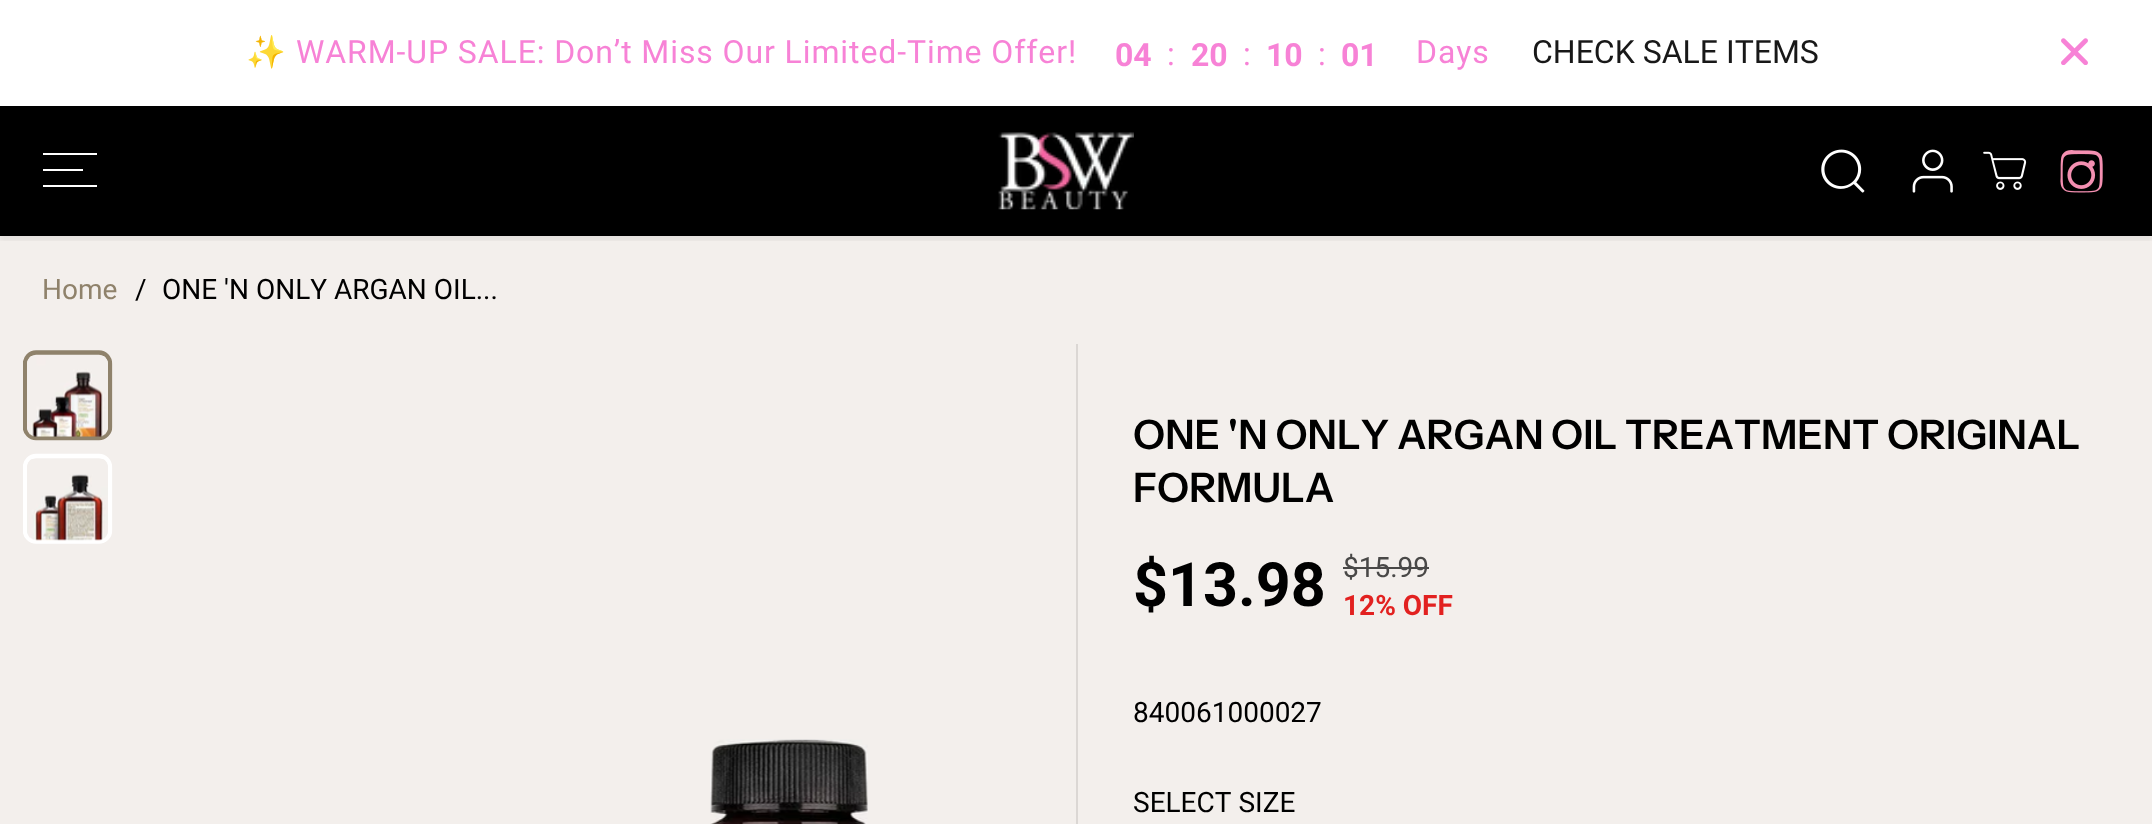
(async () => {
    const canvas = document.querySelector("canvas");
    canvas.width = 2152;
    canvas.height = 824;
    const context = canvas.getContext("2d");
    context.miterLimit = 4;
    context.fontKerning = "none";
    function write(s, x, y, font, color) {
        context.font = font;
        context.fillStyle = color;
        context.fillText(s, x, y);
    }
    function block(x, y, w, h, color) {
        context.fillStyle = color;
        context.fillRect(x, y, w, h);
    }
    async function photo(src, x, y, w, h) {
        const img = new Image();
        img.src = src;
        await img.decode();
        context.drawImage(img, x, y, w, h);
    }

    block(0, 0, 2152, 824, "rgb(255, 255, 255)");
    context.letterSpacing = "0.9px";
    write("✨", 246, 63, "32px Noto Color Emoji", "rgb(247, 130, 214)");
    write("WARM-UP SALE: Don’t Miss Our Limited-Time Offer!", 296, 63, "32px Roboto", "rgb(247, 130, 214)");
    context.letterSpacing = "0px";
    write("04", 1115, 66, "bold 32px Roboto", "rgb(247, 130, 214)");
    write(":", 1167, 65, "32px Roboto", "rgb(247, 130, 214)");
    write("20", 1191, 66, "bold 32px Roboto", "rgb(247, 130, 214)");
    write(":", 1243, 65, "32px Roboto", "rgb(247, 130, 214)");
    write("10", 1266, 66, "bold 32px Roboto", "rgb(247, 130, 214)");
    write(":", 1318, 65, "32px Roboto", "rgb(247, 130, 214)");
    write("01", 1341, 66, "bold 32px Roboto", "rgb(247, 130, 214)");
    context.letterSpacing = "0.9px";
    write("Days", 1416, 63, "32px Roboto", "rgb(247, 130, 214)");
    context.letterSpacing = "0px";
    write("CHECK SALE ITEMS", 1532, 63, "32px Roboto", "rgb(24, 24, 24)");
    await photo("media/1.png", 2061, 38, 27, 27);
    block(0, 106, 2152, 130, "rgb(0, 0, 0)");
    block(0, 236, 2152, 588, "rgb(243, 239, 236)");
    context.save();
    context.beginPath();
    context.rect(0, 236, 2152, 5);
    context.clip();
    context.fillStyle = "rgba(0, 0, 0, 0.05)";
    context.filter = "blur(2px)";
    context.beginPath();
    context.rect(0, 110, 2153, 131);
    context.fill();
    context.filter = "none";
    context.restore();
    block(43, 169, 40, 2, "rgb(255, 255, 255)");
    block(43, 153, 54, 2, "rgb(255, 255, 255)");
    block(43, 185, 54, 2, "rgb(255, 255, 255)");
    await photo("media/2.png", 998, 132, 136, 78);
    await photo("media/3.png", 1821, 149, 44, 44);
    await photo("media/4.png", 1912, 149, 41, 44);
    await photo("media/5.png", 1983, 151, 44, 39);
    await photo("media/6.png", 2060, 150, 43, 43);
    write("Home", 42, 299, "28px Roboto", "rgb(143, 130, 107)");
    write("/", 135, 299, "28px Roboto", "rgb(0, 0, 0)");
    write("ONE 'N ONLY ARGAN OIL...", 162, 299, "28px Roboto", "rgb(0, 0, 0)");
    block(1076, 344, 2, 480, "rgb(219, 215, 212)");
    context.save();
    context.beginPath();
    context.rect(23, 344, 117, 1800);
    context.clip();
    context.beginPath();
    context.moveTo(112.5, 343.5);
    context.lineTo(112.5, 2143.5);
    context.lineTo(22.5, 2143.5);
    context.lineTo(22.5, 343.5);
    context.closePath();
    context.clip();
    context.beginPath();
    context.moveTo(110, 364);
    context.lineTo(110, 427);
    context.bezierCurveTo(110, 433, 105, 438, 99, 438);
    context.lineTo(36, 438);
    context.bezierCurveTo(30, 438, 25, 433, 25, 427);
    context.lineTo(25, 364);
    context.bezierCurveTo(25, 357.5, 30, 352.5, 36, 352.5);
    context.lineTo(99, 352.5);
    context.bezierCurveTo(105, 352.5, 110, 357.5, 110, 364);
    context.closePath();
    context.strokeStyle = "rgb(143, 130, 107)";
    context.lineWidth = 4.5;
    context.stroke();
    context.restore();
    context.fillStyle = "rgb(243, 239, 236)";
    context.beginPath();
    context.moveTo(108, 364);
    context.bezierCurveTo(108, 360, 106, 358, 104, 356);
    context.lineTo(31, 356);
    context.bezierCurveTo(29, 358, 27, 360, 27, 364);
    context.lineTo(27, 427);
    context.bezierCurveTo(27, 432, 31, 436, 36, 436);
    context.lineTo(99, 436);
    context.bezierCurveTo(104, 436, 108, 432, 108, 427);
    context.closePath();
    context.fill();
    await photo("media/7.png", 27, 355, 81, 82);
    context.save();
    context.beginPath();
    context.rect(23, 344, 117, 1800);
    context.clip();
    context.beginPath();
    context.moveTo(112.5, 343.5);
    context.lineTo(112.5, 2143.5);
    context.lineTo(22.5, 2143.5);
    context.lineTo(22.5, 343.5);
    context.closePath();
    context.clip();
    context.beginPath();
    context.moveTo(110, 467.5);
    context.lineTo(110, 530.5);
    context.bezierCurveTo(110, 536.5, 105, 541.5, 99, 541.5);
    context.lineTo(36, 541.5);
    context.bezierCurveTo(30, 541.5, 25, 536.5, 25, 530.5);
    context.lineTo(25, 467.5);
    context.bezierCurveTo(25, 461, 30, 456, 36, 456);
    context.lineTo(99, 456);
    context.bezierCurveTo(105, 456, 110, 461, 110, 467.5);
    context.closePath();
    context.strokeStyle = "rgb(255, 255, 255)";
    context.lineWidth = 4.5;
    context.stroke();
    context.restore();
    context.beginPath();
    context.moveTo(108, 467);
    context.bezierCurveTo(108, 464, 106, 460, 103, 459);
    context.lineTo(32, 459);
    context.bezierCurveTo(29, 460, 27, 464, 27, 467);
    context.lineTo(27, 530);
    context.bezierCurveTo(27, 535, 31, 539, 36, 539);
    context.lineTo(99, 539);
    context.bezierCurveTo(104, 539, 108, 535, 108, 530);
    context.closePath();
    context.fill();
    await photo("media/8.png", 27, 474, 81, 67);
    await photo("media/9.png", 710, 739, 158, 85);
    write("ONE 'N ONLY ARGAN", 1133, 449, "600 40.5px Instrument Sans", "rgb(0, 0, 0)");
    write("OIL TREATMENT ORIGINAL", 1551, 449, "600 40.5px Instrument Sans", "rgb(0, 0, 0)");
    write("FORMULA", 1133, 502, "600 40.5px Instrument Sans", "rgb(0, 0, 0)");
    write("$13.98", 1133, 606, "bold 61px Roboto", "rgb(0, 0, 0)");
    write("$15.99", 1343, 577, "28px Roboto", "rgb(73, 72, 71)");
    block(1343, 567, 86, 2, "rgb(73, 72, 71)");
    write("12% OFF", 1343, 615, "bold 28px Roboto", "rgb(226, 33, 32)");
    write("840061000027", 1133, 722, "28px Roboto", "rgb(0, 0, 0)");
    write("SELECT SIZE", 1133, 812, "28px Roboto", "rgb(0, 0, 0)");
})();
